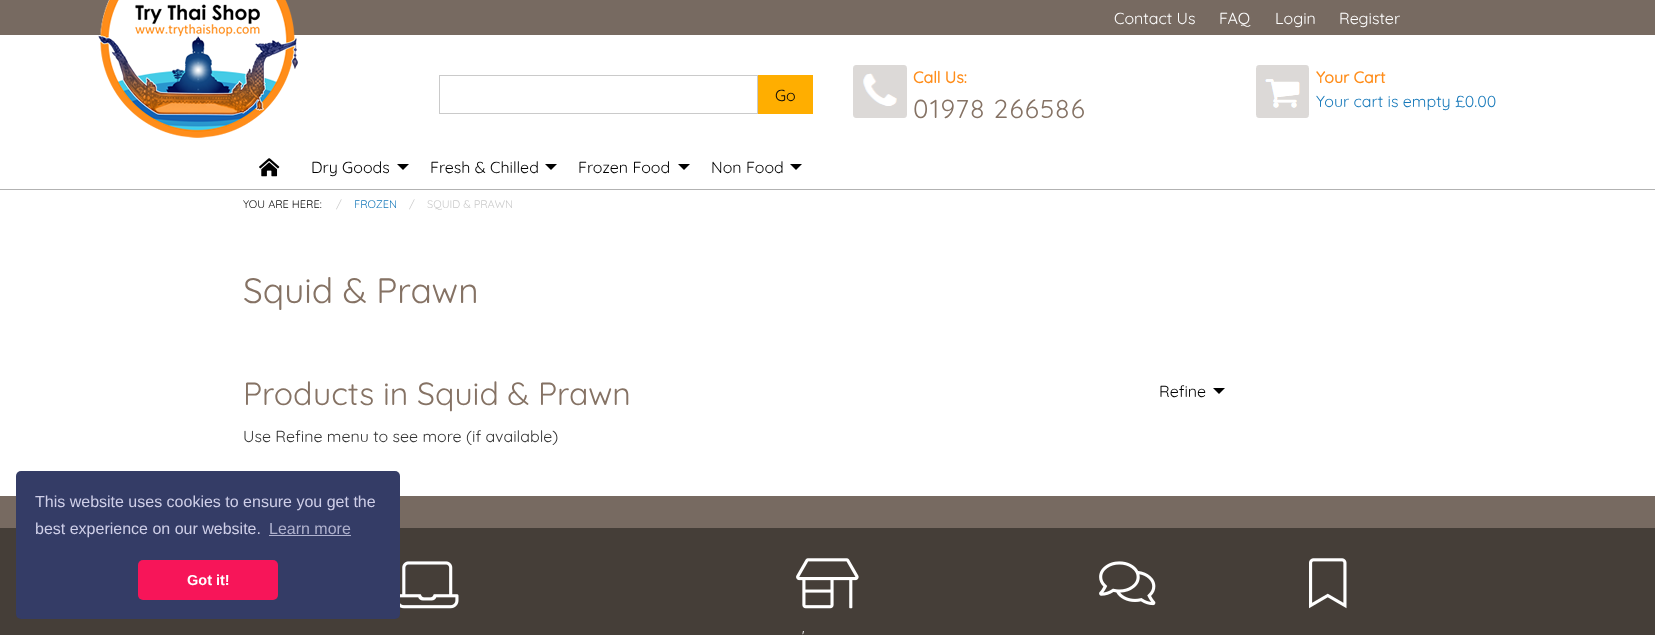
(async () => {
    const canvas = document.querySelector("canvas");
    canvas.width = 1655;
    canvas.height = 635;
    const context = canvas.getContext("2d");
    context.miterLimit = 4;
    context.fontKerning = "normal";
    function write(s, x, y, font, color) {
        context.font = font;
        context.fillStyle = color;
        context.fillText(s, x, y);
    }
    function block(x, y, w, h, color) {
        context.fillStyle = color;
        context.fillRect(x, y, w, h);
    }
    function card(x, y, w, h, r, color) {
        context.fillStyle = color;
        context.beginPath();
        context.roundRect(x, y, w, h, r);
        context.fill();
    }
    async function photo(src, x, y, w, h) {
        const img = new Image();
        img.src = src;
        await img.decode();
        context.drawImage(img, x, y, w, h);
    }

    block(0, 0, 1655, 635, "rgb(255, 255, 255)");
    block(0, 528, 1655, 107, "rgb(69, 62, 56)");
    block(0, 496, 1655, 32, "rgb(119, 106, 97)");
    card(16, 471, 384, 148, 5, "rgb(52, 60, 102)");
    write("This website uses cookies to ensure you get the", 35, 507, "16px Liberation Sans", "rgb(207, 207, 232)");
    write("best experience on our website.", 35, 534, "16px Liberation Sans", "rgb(207, 207, 232)");
    write("Learn more", 269, 534, "16px Liberation Sans", "rgb(176, 178, 206)");
    block(269, 535, 82, 1, "rgb(176, 178, 206)");
    card(138, 560, 140, 40, 5, "rgb(247, 21, 89)");
    write("Got it!", 187, 585, "bold 14.5px Liberation Sans", "rgb(255, 255, 255)");
    block(0, 0, 1655, 35, "rgb(119, 106, 97)");
    write("Contact Us", 1114, 24, "300 16px Quicksand", "rgb(255, 255, 255)");
    write("FAQ", 1219, 24, "300 16px Quicksand", "rgb(255, 255, 255)");
    write("Login", 1275, 24, "300 16px Quicksand", "rgb(255, 255, 255)");
    write("Register", 1339, 24, "300 16px Quicksand", "rgb(255, 255, 255)");
    await photo("media/1.png", 98, 0, 200, 138);
    context.strokeStyle = "rgb(202, 202, 202)";
    context.strokeRect(439.5, 75.5, 318, 38);
    block(758, 75, 55, 39, "rgb(255, 174, 0)");
    write("Go", 775, 101, "300 16px Quicksand", "rgb(10, 10, 10)");
    await photo("media/2.png", 853, 65, 54, 53);
    write("Call Us:", 913, 83, "bold 16px Quicksand", "rgb(255, 141, 26)");
    context.letterSpacing = "1.25px";
    write("01978 266586", 913, 118, "300 26px Quicksand", "rgb(133, 114, 100)");
    await photo("media/3.png", 1256, 65, 53, 53);
    context.letterSpacing = "0px";
    write("Your Cart", 1316, 83, "bold 16px Quicksand", "rgb(255, 141, 26)");
    write("Your cart is empty £0.00", 1316, 107, "300 16px Quicksand", "rgb(23, 121, 186)");
    await photo("media/4.png", 259, 158, 21, 19);
    write("Dry Goods", 311, 173, "300 16px Quicksand", "rgb(0, 0, 0)");
    context.beginPath();
    context.moveTo(397, 164);
    context.lineTo(409, 164);
    context.lineTo(403, 170);
    context.closePath();
    context.fill();
    write("Fresh & Chilled", 430, 173, "300 16px Quicksand", "rgb(0, 0, 0)");
    context.beginPath();
    context.moveTo(545, 164);
    context.lineTo(557, 164);
    context.lineTo(551, 170);
    context.closePath();
    context.fill();
    write("Frozen Food", 578, 173, "300 16px Quicksand", "rgb(0, 0, 0)");
    context.beginPath();
    context.moveTo(678, 164);
    context.lineTo(690, 164);
    context.lineTo(684, 170);
    context.closePath();
    context.fill();
    write("Non Food", 711, 173, "300 16px Quicksand", "rgb(0, 0, 0)");
    context.beginPath();
    context.moveTo(790, 164);
    context.lineTo(802, 164);
    context.lineTo(796, 170);
    context.closePath();
    context.fill();
    block(0, 189, 1655, 1, "rgb(178, 178, 178)");
    write("YOU ARE HERE:", 243, 208, "300 11px Quicksand", "rgb(10, 10, 10)");
    write("/", 336, 208, "300 11px Quicksand", "rgb(202, 202, 202)");
    write("FROZEN", 354, 208, "300 11px Quicksand", "rgb(23, 121, 186)");
    write("/", 409, 208, "300 11px Quicksand", "rgb(202, 202, 202)");
    write("SQUID & PRAWN", 427, 208, "300 11px Quicksand", "rgb(202, 202, 202)");
    write("Squid & Prawn", 243, 303, "300 35.25px Quicksand", "rgb(133, 114, 100)");
    write("Products in Squid & Prawn", 243, 405, "300 32px Quicksand", "rgb(133, 114, 100)");
    write("Use Refine menu to see more (if available)", 243, 442, "300 16px Quicksand", "rgb(51, 51, 51)");
    write("Refine", 1159, 397, "300 16px Quicksand", "rgb(0, 0, 0)");
    context.beginPath();
    context.moveTo(1213, 388);
    context.lineTo(1225, 388);
    context.lineTo(1219, 394);
    context.closePath();
    context.fill();
    await photo("media/5.png", 400, 561, 59, 48);
    await photo("media/6.png", 1099, 561, 57, 45);
    await photo("media/7.png", 1309, 558, 38, 51);
    await photo("media/8.png", 796, 558, 63, 51);
    write("'", 802, 640, "300 13px Quicksand", "rgb(255, 255, 255)");
})();
